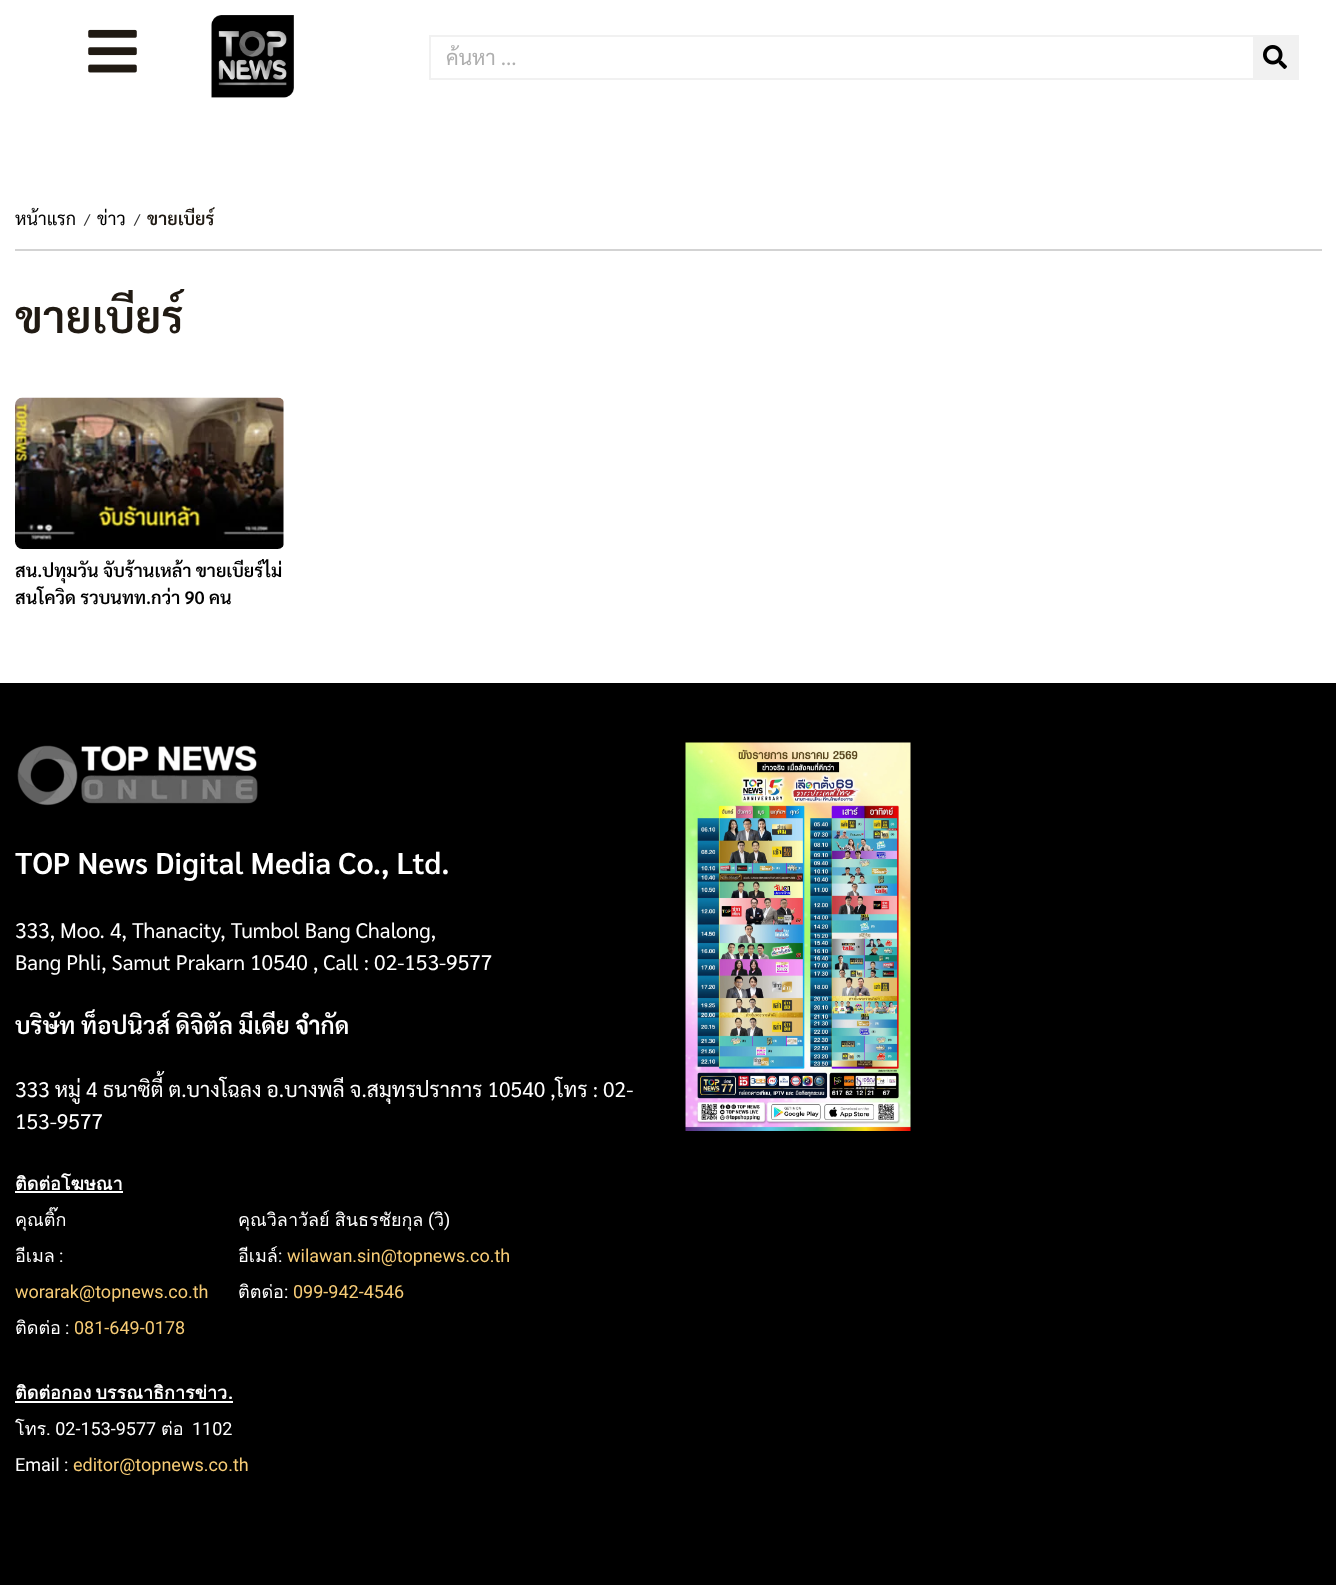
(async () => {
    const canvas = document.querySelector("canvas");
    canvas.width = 1336;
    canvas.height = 1585;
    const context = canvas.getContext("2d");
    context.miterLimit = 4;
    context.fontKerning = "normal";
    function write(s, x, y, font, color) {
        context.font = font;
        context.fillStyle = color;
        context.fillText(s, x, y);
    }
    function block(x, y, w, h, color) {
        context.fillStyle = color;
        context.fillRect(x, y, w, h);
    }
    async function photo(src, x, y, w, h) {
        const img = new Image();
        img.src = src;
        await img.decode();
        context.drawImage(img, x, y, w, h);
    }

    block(0, 0, 1336, 1585, "rgb(255, 255, 255)");
    await photo("media/1.png", 88, 29, 49, 44);
    await photo("media/2.png", 211, 15, 83, 83);
    context.strokeStyle = "rgb(241, 241, 241)";
    context.lineWidth = 2;
    context.strokeRect(430, 36, 868, 43);
    context.save();
    context.beginPath();
    context.rect(446, 44, 771, 27);
    context.clip();
    write("ค้นหา ...", 446, 65, "21px Sarabun", "rgb(175, 175, 175)");
    context.restore();
    block(1253, 37, 44, 41, "rgb(241, 241, 241)");
    await photo("media/3.png", 1263, 45, 24, 24);
    write("หน้าแรก", 15, 225, "18px Sarabun", "rgb(0, 0, 0)");
    write("/", 84, 225, "15px Sarabun", "rgb(51, 51, 51)");
    write("ข่าว", 97, 225, "18px Sarabun", "rgb(0, 0, 0)");
    write("/", 134, 225, "15px Sarabun", "rgb(51, 51, 51)");
    write("ขายเบียร์", 147, 225, "600 18px Sarabun", "rgb(32, 26, 19)");
    block(15, 249, 1307, 2, "rgb(211, 211, 211)");
    write("ขายเบียร์", 15, 333, "600 45px Sarabun", "rgb(32, 26, 19)");
    await photo("media/4.png", 15, 397, 269, 152);
    write("สน.ปทุมวัน จับร้านเหล้า ขายเบียร์ไม่", 15, 577, "600 18px Sarabun", "rgb(0, 0, 0)");
    write("สนโควิด รวบนทท.กว่า 90 คน", 15, 604, "600 18px Sarabun", "rgb(0, 0, 0)");
    block(0, 683, 1336, 902, "rgb(0, 0, 0)");
    await photo("media/5.png", 17, 745, 241, 61);
    write("TOP News Digital Media Co., Ltd.", 15, 874, "600 30px Sarabun", "rgb(255, 255, 255)");
    write("333, Moo. 4, Thanacity, Tumbol Bang Chalong,", 15, 938, "21px Sarabun", "rgb(255, 255, 255)");
    write("Bang Phli, Samut Prakarn 10540 , Call : 02-153-9577", 15, 970, "21px Sarabun", "rgb(255, 255, 255)");
    write("บริษัท ท็อปนิวส์ ดิจิตัล มีเดีย จำกัด", 15, 1034, "600 24px Sarabun", "rgb(255, 255, 255)");
    write("333 หมู่ 4 ธนาซิตี้ ต.บางโฉลง อ.บางพลี จ.สมุทรปราการ 10540 ,โทร : 02-", 15, 1097, "21px Sarabun", "rgb(255, 255, 255)");
    write("153-9577", 15, 1129, "21px Sarabun", "rgb(255, 255, 255)");
    write("ติดต่อโฆษณา", 15, 1190, "bold 18px Loma", "rgb(255, 255, 255)");
    block(15, 1191, 108, 2, "rgb(255, 255, 255)");
    write("คุณติ๊ก", 15, 1226, "18px Loma", "rgb(255, 255, 255)");
    write("อีเมล", 15, 1262, "18px Loma", "rgb(255, 255, 255)");
    write(":", 59, 1262, "18px Roboto", "rgb(255, 255, 255)");
    write("worarak@topnews.co.th", 15, 1298, "18px Roboto", "rgb(247, 204, 118)");
    write("ติดต่อ", 15, 1334, "18px Loma", "rgb(255, 255, 255)");
    write(":", 65, 1334, "18px Roboto", "rgb(255, 255, 255)");
    write("081-649-0178", 74, 1334, "18px Roboto", "rgb(247, 204, 118)");
    context.wordSpacing = "-1px";
    write("คุณวิลาวัลย์ สินธรชัยกุล", 238, 1226, "18px Loma", "rgb(255, 255, 255)");
    context.wordSpacing = "0px";
    write("(", 428, 1226, "18px Roboto", "rgb(255, 255, 255)");
    write("วิ", 434, 1226, "18px Loma", "rgb(255, 255, 255)");
    write(")", 444, 1226, "18px Roboto", "rgb(255, 255, 255)");
    write("อีเมล์", 238, 1262, "18px Loma", "rgb(255, 255, 255)");
    write(":", 278, 1262, "18px Roboto", "rgb(255, 255, 255)");
    write("wilawan.sin@topnews.co.th", 287, 1262, "18px Roboto", "rgb(247, 204, 118)");
    write("ติตด่อ", 238, 1298, "18px Loma", "rgb(255, 255, 255)");
    write(":", 284, 1298, "18px Roboto", "rgb(255, 255, 255)");
    write("099-942-4546", 293, 1298, "18px Roboto", "rgb(247, 204, 118)");
    context.wordSpacing = "-2px";
    write("ติดต่อกอง บรรณาธิการข่าว", 15, 1399, "bold 18px Loma", "rgb(255, 255, 255)");
    context.wordSpacing = "0px";
    write(".", 228, 1399, "bold 18px Roboto", "rgb(255, 255, 255)");
    block(15, 1401, 218, 2, "rgb(255, 255, 255)");
    write("โทร", 15, 1435, "18px Loma", "rgb(255, 255, 255)");
    write(". 02-153-9577", 46, 1435, "18px Roboto", "rgb(255, 255, 255)");
    write("ต่อ", 161, 1435, "18px Loma", "rgb(255, 255, 255)");
    write("1102", 192, 1435, "18px Roboto", "rgb(255, 255, 255)");
    write("Email :", 15, 1471, "18px Roboto", "rgb(255, 255, 255)");
    write("editor@topnews.co.th", 73, 1471, "18px Roboto", "rgb(247, 204, 118)");
    await photo("media/6.png", 685, 742, 226, 389);
})();
